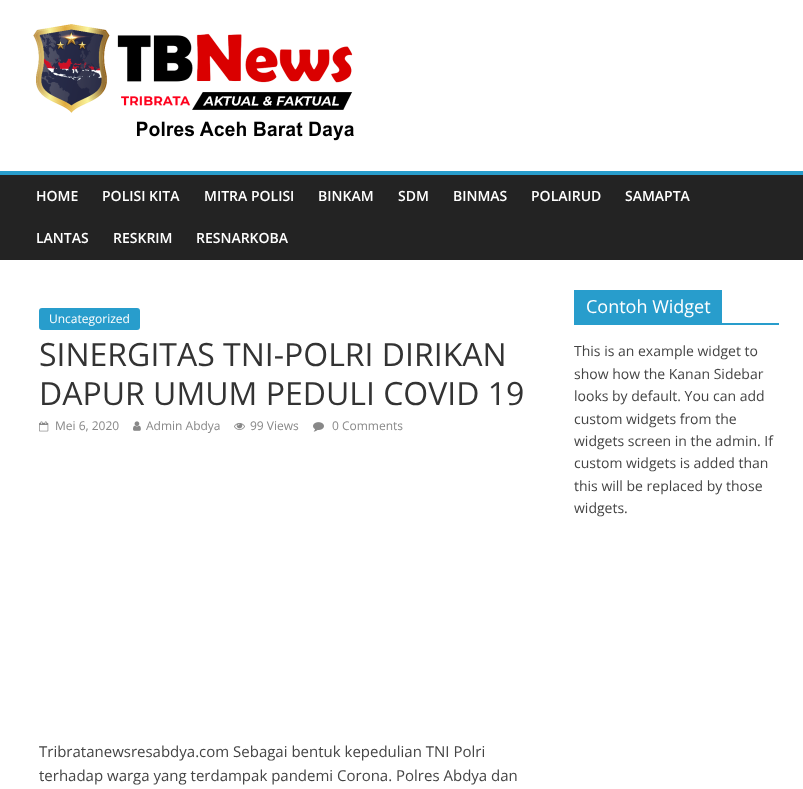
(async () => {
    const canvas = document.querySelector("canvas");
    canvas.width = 803;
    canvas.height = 789;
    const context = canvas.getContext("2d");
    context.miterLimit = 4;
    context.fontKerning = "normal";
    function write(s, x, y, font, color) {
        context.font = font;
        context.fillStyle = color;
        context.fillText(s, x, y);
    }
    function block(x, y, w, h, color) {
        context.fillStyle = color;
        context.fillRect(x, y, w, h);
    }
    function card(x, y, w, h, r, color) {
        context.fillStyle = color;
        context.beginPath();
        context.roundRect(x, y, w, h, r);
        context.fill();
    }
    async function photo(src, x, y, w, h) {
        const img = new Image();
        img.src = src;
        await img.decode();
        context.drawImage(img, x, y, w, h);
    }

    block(0, 0, 803, 789, "rgb(255, 255, 255)");
    await photo("media/1.png", 33, 24, 321, 117);
    block(0, 175, 803, 85, "rgb(35, 35, 35)");
    block(0, 171, 803, 4, "rgb(40, 157, 204)");
    write("HOME", 36, 201, "600 14px Open Sans", "rgb(255, 255, 255)");
    write("POLISI KITA", 102, 201, "600 14px Open Sans", "rgb(255, 255, 255)");
    write("MITRA POLISI", 204, 201, "600 14px Open Sans", "rgb(255, 255, 255)");
    write("BINKAM", 318, 201, "600 14px Open Sans", "rgb(255, 255, 255)");
    write("SDM", 398, 201, "600 14px Open Sans", "rgb(255, 255, 255)");
    write("BINMAS", 453, 201, "600 14px Open Sans", "rgb(255, 255, 255)");
    write("POLAIRUD", 531, 201, "600 14px Open Sans", "rgb(255, 255, 255)");
    write("SAMAPTA", 625, 201, "600 14px Open Sans", "rgb(255, 255, 255)");
    write("LANTAS", 36, 243, "600 14px Open Sans", "rgb(255, 255, 255)");
    write("RESKRIM", 113, 243, "600 14px Open Sans", "rgb(255, 255, 255)");
    write("RESNARKOBA", 196, 243, "600 14px Open Sans", "rgb(255, 255, 255)");
    card(39, 308, 101, 22, 3, "rgb(40, 157, 204)");
    write("Uncategorized", 49, 323, "12px Open Sans", "rgb(255, 255, 255)");
    write("SINERGITAS TNI-POLRI DIRIKAN", 39, 366, "32px Open Sans", "rgb(51, 51, 51)");
    write("DAPUR UMUM PEDULI COVID 19", 39, 405, "32px Open Sans", "rgb(51, 51, 51)");
    await photo("media/2.png", 39, 421, 10, 11);
    write("Mei 6, 2020", 55, 430, "12px Open Sans", "rgb(136, 136, 136)");
    await photo("media/3.png", 133, 421, 8, 10);
    write("Admin Abdya", 146, 430, "12px Open Sans", "rgb(136, 136, 136)");
    await photo("media/4.png", 234, 422, 11, 8);
    write("99 Views", 250, 430, "12px Open Sans", "rgb(136, 136, 136)");
    await photo("media/5.png", 313, 422, 11, 10);
    write("0 Comments", 332, 430, "12px Open Sans", "rgb(136, 136, 136)");
    write("Tribratanewsresabdya.com Sebagai bentuk kepedulian TNI Polri", 39, 757, "15px Open Sans", "rgb(68, 68, 68)");
    write("terhadap warga yang terdampak pandemi Corona. Polres Abdya dan", 39, 781, "15px Open Sans", "rgb(68, 68, 68)");
    block(574, 323, 205, 2, "rgb(40, 157, 204)");
    block(574, 290, 148, 33, "rgb(40, 157, 204)");
    write("Contoh Widget", 586, 313, "18px Open Sans", "rgb(255, 255, 255)");
    write("This is an example widget to", 574, 356, "14px Open Sans", "rgb(68, 68, 68)");
    write("show how the Kanan Sidebar", 574, 379, "14px Open Sans", "rgb(68, 68, 68)");
    write("looks by default. You can add", 574, 401, "14px Open Sans", "rgb(68, 68, 68)");
    write("custom widgets from the", 574, 424, "14px Open Sans", "rgb(68, 68, 68)");
    write("widgets screen in the admin. If", 574, 446, "14px Open Sans", "rgb(68, 68, 68)");
    write("custom widgets is added than", 574, 468, "14px Open Sans", "rgb(68, 68, 68)");
    write("this will be replaced by those", 574, 491, "14px Open Sans", "rgb(68, 68, 68)");
    write("widgets.", 574, 513, "14px Open Sans", "rgb(68, 68, 68)");
})();
